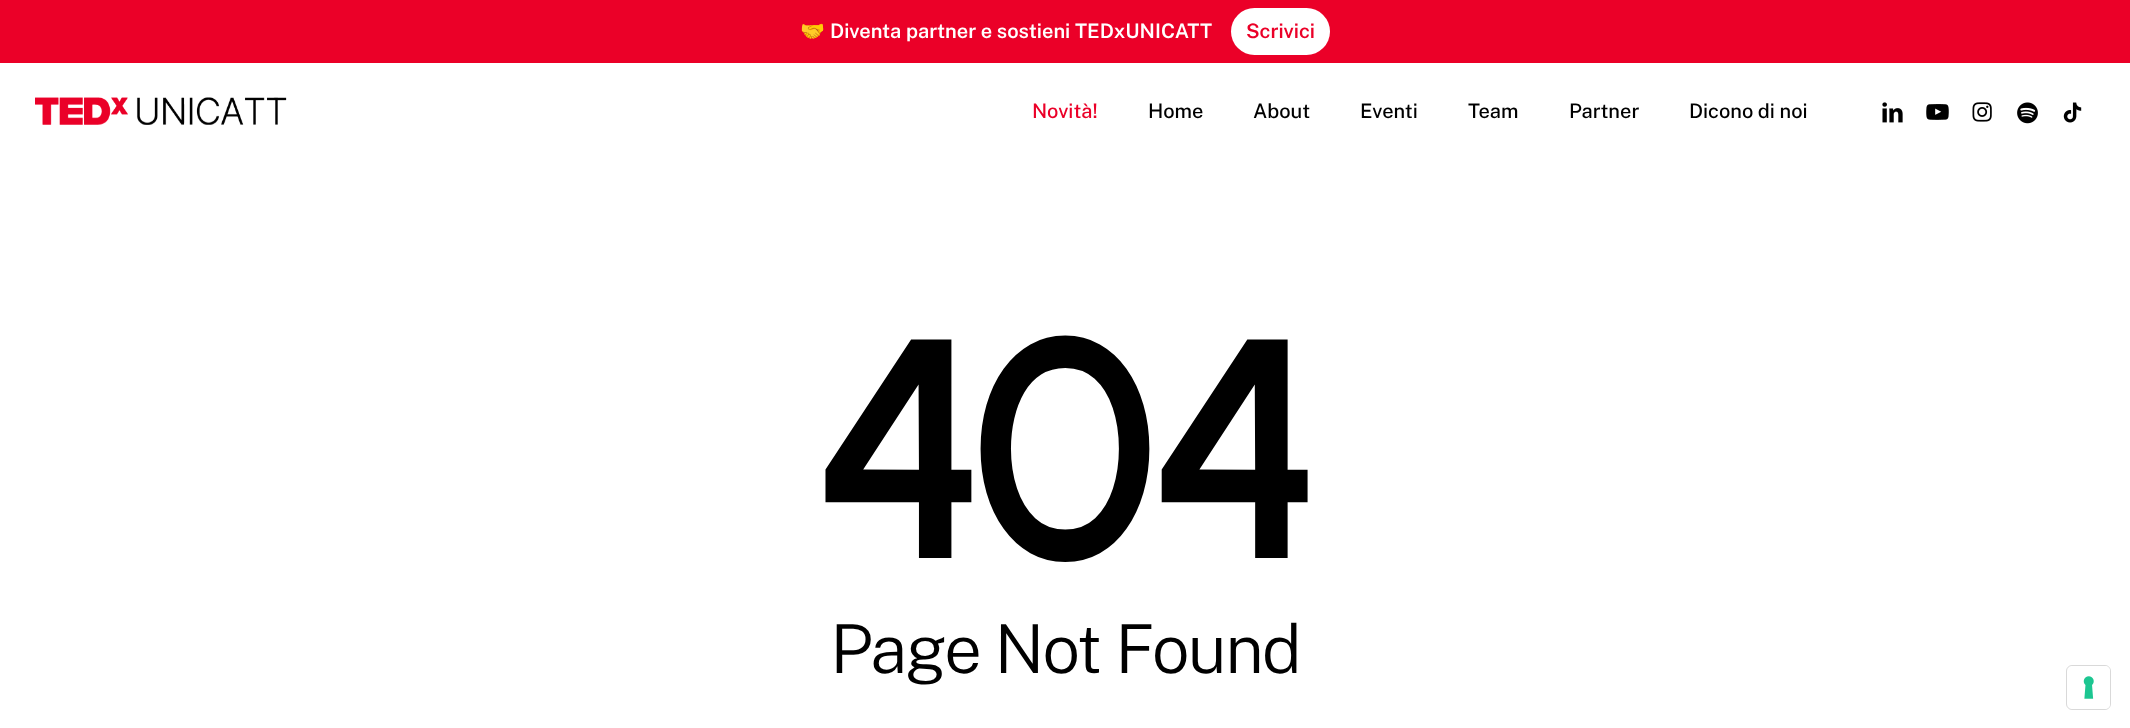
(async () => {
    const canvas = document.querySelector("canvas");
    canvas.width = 2130;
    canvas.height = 728;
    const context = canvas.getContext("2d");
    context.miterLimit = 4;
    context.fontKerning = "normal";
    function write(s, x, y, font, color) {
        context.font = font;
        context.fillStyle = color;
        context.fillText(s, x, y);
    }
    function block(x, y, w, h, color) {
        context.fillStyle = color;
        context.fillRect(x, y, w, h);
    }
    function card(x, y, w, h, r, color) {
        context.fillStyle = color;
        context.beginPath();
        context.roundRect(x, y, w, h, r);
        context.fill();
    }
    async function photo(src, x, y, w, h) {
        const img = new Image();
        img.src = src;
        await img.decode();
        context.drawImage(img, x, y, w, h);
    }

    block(0, 0, 2130, 728, "rgb(255, 255, 255)");
    block(0, 0, 2130, 63, "rgb(235, 0, 40)");
    write("🤝", 800, 38, "bold 20px Noto Color Emoji", "rgb(255, 255, 255)");
    write("Diventa partner e sostieni TEDxUNICATT", 830, 38, "600 20px Public Sans", "rgb(255, 255, 255)");
    card(1231, 8, 99, 47, 23.5, "rgb(255, 255, 255)");
    write("Scrivici", 1246, 38, "600 20px Public Sans", "rgb(235, 0, 40)");
    await photo("media/1.png", 35, 97, 252, 28);
    write("Novità!", 1032, 118, "500 20px Public Sans", "rgb(235, 0, 40)");
    write("Home", 1148, 118, "500 20px Public Sans", "rgb(0, 0, 0)");
    write("About", 1253, 118, "500 20px Public Sans", "rgb(0, 0, 0)");
    write("Eventi", 1360, 118, "500 20px Public Sans", "rgb(0, 0, 0)");
    write("Team", 1468, 118, "500 20px Public Sans", "rgb(0, 0, 0)");
    write("Partner", 1569, 118, "500 20px Public Sans", "rgb(0, 0, 0)");
    write("Dicono di noi", 1689, 118, "500 20px Public Sans", "rgb(0, 0, 0)");
    await photo("media/2.png", 1882, 102, 21, 21);
    await photo("media/3.png", 1926, 104, 23, 16);
    await photo("media/4.png", 1972, 102, 20, 20);
    await photo("media/5.png", 2017, 102, 21, 22);
    await photo("media/6.png", 2063, 102, 19, 21);
    context.letterSpacing = "-9.5px";
    write("404", 813, 558, "600 312px Urbanist", "rgb(0, 0, 0)");
    context.letterSpacing = "-2px";
    write("Page Not Found", 830, 673, "300 67.5px Public Sans", "rgb(0, 0, 0)");
    context.beginPath();
    context.roundRect(2066.5, 665.5, 44, 44, 5.5);
    context.strokeStyle = "rgb(217, 217, 217)";
    context.stroke();
    card(2068, 666, 42, 43, 5, "rgb(255, 255, 255)");
    await photo("media/7.png", 2083, 676, 11, 23);
})();
